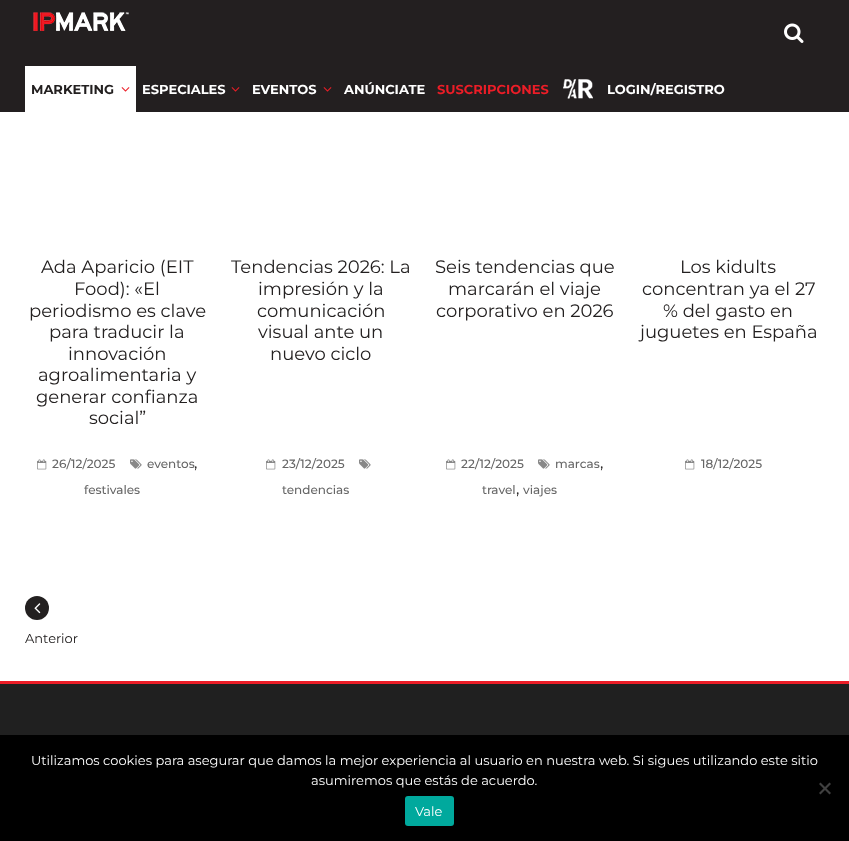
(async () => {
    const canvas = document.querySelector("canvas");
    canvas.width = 849;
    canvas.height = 841;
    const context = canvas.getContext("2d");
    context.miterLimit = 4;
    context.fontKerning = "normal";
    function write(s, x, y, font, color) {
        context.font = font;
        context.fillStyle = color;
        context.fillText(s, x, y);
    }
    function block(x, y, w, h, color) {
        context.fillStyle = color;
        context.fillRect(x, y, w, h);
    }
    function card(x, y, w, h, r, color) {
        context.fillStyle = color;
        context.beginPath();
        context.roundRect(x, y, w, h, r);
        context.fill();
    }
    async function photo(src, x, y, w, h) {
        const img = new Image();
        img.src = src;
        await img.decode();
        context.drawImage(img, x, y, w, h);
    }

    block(0, 0, 849, 841, "rgb(255, 255, 255)");
    block(0, 0, 849, 112, "rgb(35, 31, 32)");
    await photo("media/1.png", 33, 12, 96, 19);
    await photo("media/2.png", 784, 23, 20, 20);
    block(25, 66, 111, 46, "rgb(255, 255, 255)");
    write("MARKETING", 31, 94, "bold 13px Montserrat", "rgb(35, 32, 32)");
    await photo("media/3.png", 121, 87, 9, 5);
    write("ESPECIALES", 142, 94, "bold 13px Montserrat", "rgb(255, 255, 255)");
    await photo("media/4.png", 231, 87, 9, 5);
    write("EVENTOS", 252, 94, "bold 13px Montserrat", "rgb(255, 255, 255)");
    await photo("media/4.png", 323, 87, 9, 5);
    write("ANÚNCIATE", 344, 94, "bold 13px Montserrat", "rgb(255, 255, 255)");
    write("SUSCRIPCIONES", 437, 94, "bold 13px Montserrat", "rgb(236, 29, 39)");
    await photo("media/5.png", 563, 79, 30, 20);
    write("LOGIN/REGISTRO", 607, 94, "bold 13px Montserrat", "rgb(255, 255, 255)");
    write("Ada Aparicio (EIT", 41, 273, "18px Montserrat", "rgb(35, 32, 32)");
    write("Food): «El", 74, 295, "18px Montserrat", "rgb(35, 32, 32)");
    write("periodismo es clave", 29, 317, "18px Montserrat", "rgb(35, 32, 32)");
    write("para traducir la", 49, 338, "18px Montserrat", "rgb(35, 32, 32)");
    write("innovación", 68, 360, "18px Montserrat", "rgb(35, 32, 32)");
    write("agroalimentaria y", 38, 381, "18px Montserrat", "rgb(35, 32, 32)");
    write("generar confianza", 36, 403, "18px Montserrat", "rgb(35, 32, 32)");
    write("social”", 89, 424, "18px Montserrat", "rgb(35, 32, 32)");
    await photo("media/6.png", 37, 459, 10, 11);
    write("26/12/2025", 52, 468, "500 12px Montserrat", "rgb(102, 102, 102)");
    await photo("media/7.png", 130, 459, 12, 10);
    write("eventos", 147, 468, "500 12px Montserrat", "rgb(102, 102, 102)");
    write(",", 194, 468, "16px Montserrat", "rgb(35, 32, 32)");
    write("festivales", 84, 494, "500 12px Montserrat", "rgb(102, 102, 102)");
    write("Tendencias 2026: La", 231, 273, "18px Montserrat", "rgb(35, 32, 32)");
    write("impresión y la", 258, 295, "18px Montserrat", "rgb(35, 32, 32)");
    write("comunicación", 257, 317, "18px Montserrat", "rgb(35, 32, 32)");
    write("visual ante un", 258, 338, "18px Montserrat", "rgb(35, 32, 32)");
    write("nuevo ciclo", 270, 360, "18px Montserrat", "rgb(35, 32, 32)");
    await photo("media/6.png", 266, 459, 10, 11);
    write("23/12/2025", 282, 468, "500 12px Montserrat", "rgb(102, 102, 102)");
    await photo("media/7.png", 359, 459, 12, 10);
    write("tendencias", 282, 494, "500 12px Montserrat", "rgb(102, 102, 102)");
    write("Seis tendencias que", 435, 273, "18px Montserrat", "rgb(35, 32, 32)");
    write("marcarán el viaje", 448, 295, "18px Montserrat", "rgb(35, 32, 32)");
    write("corporativo en 2026", 436, 317, "18px Montserrat", "rgb(35, 32, 32)");
    await photo("media/6.png", 446, 459, 10, 11);
    write("22/12/2025", 461, 468, "500 12px Montserrat", "rgb(102, 102, 102)");
    await photo("media/7.png", 538, 459, 12, 10);
    write("marcas", 555, 468, "500 12px Montserrat", "rgb(102, 102, 102)");
    write(",", 600, 468, "16px Montserrat", "rgb(35, 32, 32)");
    write("travel", 482, 494, "500 12px Montserrat", "rgb(102, 102, 102)");
    write(",", 516, 494, "16px Montserrat", "rgb(35, 32, 32)");
    write("viajes", 523, 494, "500 12px Montserrat", "rgb(102, 102, 102)");
    write("Los kidults", 680, 273, "18px Montserrat", "rgb(35, 32, 32)");
    write("concentran ya el 27", 642, 295, "18px Montserrat", "rgb(35, 32, 32)");
    write("% del gasto en", 663, 317, "18px Montserrat", "rgb(35, 32, 32)");
    write("juguetes en España", 640, 338, "18px Montserrat", "rgb(35, 32, 32)");
    await photo("media/6.png", 685, 459, 10, 11);
    write("18/12/2025", 701, 468, "500 12px Montserrat", "rgb(102, 102, 102)");
    context.fillStyle = "rgb(35, 32, 32)";
    context.beginPath();
    context.arc(37, 608, 12, 0, Math.PI * 2);
    context.fill();
    await photo("media/8.png", 34, 603, 7, 11);
    write("Anterior", 25, 643, "13px Montserrat", "rgb(35, 32, 32)");
    block(0, 684, 849, 51, "rgb(32, 32, 32)");
    block(0, 681, 849, 3, "rgb(236, 29, 39)");
    block(0, 735, 849, 106, "rgb(0, 0, 0)");
    write("Utilizamos cookies para asegurar que damos la mejor experiencia al usuario en nuestra web. Si sigues utilizando este sitio", 31, 765, "13px Montserrat", "rgb(255, 255, 255)");
    write("asumiremos que estás de acuerdo.", 311, 785, "13px Montserrat", "rgb(255, 255, 255)");
    context.fillStyle = "rgb(64, 64, 64)";
    context.beginPath();
    context.moveTo(829.5, 782.5);
    context.lineTo(831, 784);
    context.lineTo(820.5, 794.5);
    context.lineTo(819, 793);
    context.closePath();
    context.fill();
    context.beginPath();
    context.moveTo(819, 784);
    context.lineTo(820.5, 782.5);
    context.lineTo(831, 793);
    context.lineTo(829.5, 794.5);
    context.closePath();
    context.fill();
    card(405, 796, 49, 30, 3, "rgb(0, 169, 157)");
    write("Vale", 415, 816, "13px Montserrat", "rgb(255, 255, 255)");
})();
